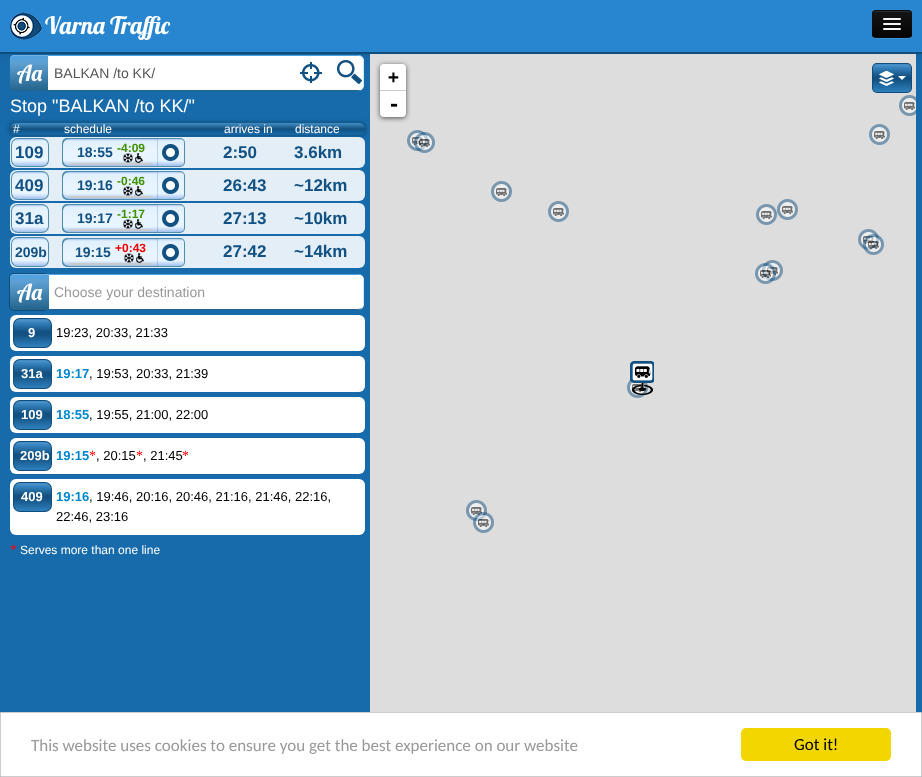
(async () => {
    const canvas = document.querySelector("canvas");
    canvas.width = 922;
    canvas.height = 777;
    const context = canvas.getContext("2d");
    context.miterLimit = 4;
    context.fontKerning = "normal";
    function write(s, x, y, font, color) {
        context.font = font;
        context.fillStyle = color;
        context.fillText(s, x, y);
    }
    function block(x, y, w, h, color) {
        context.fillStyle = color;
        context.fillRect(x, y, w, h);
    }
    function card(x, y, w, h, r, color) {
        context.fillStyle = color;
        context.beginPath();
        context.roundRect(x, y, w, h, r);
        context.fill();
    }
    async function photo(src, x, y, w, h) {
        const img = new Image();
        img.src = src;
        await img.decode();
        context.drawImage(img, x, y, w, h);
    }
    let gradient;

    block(0, 0, 922, 777, "rgb(23, 107, 171)");
    context.fillStyle = "rgba(0, 0, 0, 0.1)";
    context.filter = "blur(5px)";
    context.beginPath();
    context.rect(0, 1, 922, 54);
    context.fill();
    context.filter = "none";
    block(0, 0, 922, 52, "rgb(40, 134, 208)");
    block(0, 52, 922, 2, "rgb(16, 77, 122)");
    await photo("media/1.png", 10, 12, 32, 28);
    write("Varna Traffic", 45, 34, "24px Lobster", "rgb(255, 255, 255)");
    context.fillStyle = "rgb(56, 143, 212)";
    context.beginPath();
    context.moveTo(872, 34);
    context.bezierCurveTo(872, 40, 877, 39, 881, 39);
    context.lineTo(903, 39);
    context.bezierCurveTo(907, 39, 912, 40, 912, 34);
    context.bezierCurveTo(912, 36, 910, 38, 908, 38);
    context.lineTo(876, 38);
    context.bezierCurveTo(874, 38, 872, 36, 872, 34);
    context.closePath();
    context.fill();
    card(872, 10, 40, 28, 4, "rgb(14, 14, 14)");
    context.save();
    context.beginPath();
    context.roundRect(872, 10, 40, 28, 4);
    context.clip();
    gradient = context.createLinearGradient(892, 11, 892, 37);
    gradient.addColorStop(0, "rgb(21, 21, 21)");
    gradient.addColorStop(1, "rgb(4, 4, 4)");
    context.fillStyle = gradient;
    context.fillRect(872, 11, 40, 26);
    context.restore();
    context.fillStyle = "rgb(44, 44, 44)";
    context.beginPath();
    context.moveTo(876, 12);
    context.lineTo(908, 12);
    context.bezierCurveTo(910, 12, 911, 13, 911, 15);
    context.bezierCurveTo(911, 10, 907, 11, 902.5, 11);
    context.lineTo(881.5, 11);
    context.bezierCurveTo(877, 11, 873, 10, 873, 15);
    context.bezierCurveTo(873, 13, 874, 12, 876, 12);
    context.closePath();
    context.fill();
    context.beginPath();
    context.moveTo(910.5, 36.5);
    context.bezierCurveTo(910, 37, 909, 37.5, 908, 37.5);
    context.lineTo(876, 37.5);
    context.bezierCurveTo(875, 37.5, 874, 37, 873.5, 36.5);
    context.strokeStyle = "rgba(0, 0, 0, 0.25)";
    context.stroke();
    context.beginPath();
    context.moveTo(873.5, 36.5);
    context.bezierCurveTo(873, 36, 872.5, 35, 872.5, 34);
    context.lineTo(872.5, 14);
    context.bezierCurveTo(872.5, 13, 873, 12, 873.5, 11.5);
    context.bezierCurveTo(874, 11, 875, 10.5, 876, 10.5);
    context.lineTo(908, 10.5);
    context.bezierCurveTo(909, 10.5, 910, 11, 910.5, 11.5);
    context.bezierCurveTo(911, 12, 911.5, 13, 911.5, 14);
    context.lineTo(911.5, 34);
    context.bezierCurveTo(911.5, 35, 911, 36, 910.5, 36.5);
    context.strokeStyle = "rgba(0, 0, 0, 0.1)";
    context.stroke();
    context.fillStyle = "rgb(11, 11, 11)";
    context.beginPath();
    context.moveTo(883, 19.5);
    context.bezierCurveTo(882, 21.5, 886.5, 21, 886.5, 21);
    context.lineTo(897.5, 21);
    context.bezierCurveTo(897.5, 21, 902, 21.5, 901, 19.5);
    context.bezierCurveTo(900, 20.5, 893.5, 20, 892, 20);
    context.bezierCurveTo(890.5, 20, 884, 20.5, 883, 19.5);
    context.closePath();
    context.fill();
    card(883, 18, 18, 2, 1, "rgb(245, 245, 245)");
    context.fillStyle = "rgb(9, 9, 9)";
    context.beginPath();
    context.moveTo(883, 24.5);
    context.bezierCurveTo(882, 26.5, 886.5, 26, 886.5, 26);
    context.lineTo(897.5, 26);
    context.bezierCurveTo(897.5, 26, 902, 26.5, 901, 24.5);
    context.bezierCurveTo(900, 25.5, 893.5, 25, 892, 25);
    context.bezierCurveTo(890.5, 25, 884, 25.5, 883, 24.5);
    context.closePath();
    context.fill();
    card(883, 23, 18, 2, 1, "rgb(245, 245, 245)");
    card(883, 28, 18, 2, 1, "rgb(245, 245, 245)");
    gradient = context.createLinearGradient(29, 55, 30, 91);
    gradient.addColorStop(0, "rgb(78, 162, 228)");
    gradient.addColorStop(0.21, "rgb(94, 160, 211)");
    gradient.addColorStop(1, "rgb(35, 99, 140)");
    context.fillStyle = gradient;
    context.beginPath();
    context.roundRect(10, 55, 39, 36, [4, 0, 0, 4]);
    context.fill();
    context.fillStyle = "rgba(255, 255, 255, 0.2)";
    context.beginPath();
    context.moveTo(14, 56);
    context.lineTo(49, 56);
    context.lineTo(49, 55);
    context.lineTo(14, 55);
    context.bezierCurveTo(12, 55, 10, 57, 10, 59);
    context.lineTo(10, 60);
    context.bezierCurveTo(10, 58, 12, 56, 14, 56);
    context.closePath();
    context.fill();
    write("Aa", 17, 81, "22px Lobster", "rgb(255, 255, 255)");
    context.beginPath();
    context.roundRect(48, 55, 316, 36, [0, 6, 6, 0]);
    context.fill();
    context.fillStyle = "rgb(78, 162, 228)";
    context.beginPath();
    context.moveTo(48, 55);
    context.lineTo(48, 56);
    context.lineTo(358, 56);
    context.bezierCurveTo(360, 56, 361, 56, 362, 57);
    context.bezierCurveTo(361, 56, 360, 55, 358, 55);
    context.closePath();
    context.fill();
    context.fillStyle = "rgb(198, 238, 252)";
    context.beginPath();
    context.moveTo(361.5, 88.5);
    context.bezierCurveTo(362.5, 88, 363, 86.5, 363, 85);
    context.lineTo(363, 61);
    context.bezierCurveTo(363, 59.5, 362.5, 58, 361.5, 57.5);
    context.lineTo(362, 57);
    context.bezierCurveTo(363, 58, 364, 59.5, 364, 61);
    context.lineTo(364, 85);
    context.bezierCurveTo(364, 86.5, 363, 88, 362, 89);
    context.closePath();
    context.fill();
    context.fillStyle = "rgb(35, 99, 140)";
    context.beginPath();
    context.moveTo(48, 90);
    context.lineTo(48, 91);
    context.lineTo(358, 91);
    context.bezierCurveTo(360, 91, 361, 90, 362, 89);
    context.bezierCurveTo(361, 90, 360, 90, 358, 90);
    context.closePath();
    context.fill();
    write("BALKAN /to KK/", 54, 78, "14px Liberation Sans", "rgb(85, 85, 85)");
    await photo("media/2.png", 300, 62, 22, 21);
    await photo("media/3.png", 337, 60, 25, 24);
    block(370, 54, 546, 658, "rgb(221, 221, 221)");
    context.fillStyle = "rgb(16, 77, 122)";
    context.filter = "blur(2px)";
    context.beginPath();
    context.roundRect(9, 122, 357, 14, 6);
    context.fill();
    context.filter = "none";
    write("Stop \"BALKAN /to KK/\"", 10, 112, "18px Liberation Sans", "rgb(255, 255, 255)");
    gradient = context.createLinearGradient(36, 123, 36, 135);
    gradient.addColorStop(0, "rgb(68, 143, 196)");
    gradient.addColorStop(0.5, "rgb(18, 81, 129)");
    gradient.addColorStop(1, "rgb(23, 107, 171)");
    context.fillStyle = gradient;
    context.beginPath();
    context.roundRect(10, 123, 51, 12, [6, 0, 0, 6]);
    context.fill();
    write("#", 13, 133, "12px Liberation Sans", "rgb(255, 255, 255)");
    gradient = context.createLinearGradient(141, 123, 141, 135);
    gradient.addColorStop(0, "rgb(68, 143, 196)");
    gradient.addColorStop(0.5, "rgb(18, 81, 129)");
    gradient.addColorStop(1, "rgb(23, 107, 171)");
    context.fillStyle = gradient;
    context.fillRect(61, 123, 160, 12);
    write("schedule", 64, 133, "12px Liberation Sans", "rgb(255, 255, 255)");
    gradient = context.createLinearGradient(257, 123, 257, 135);
    gradient.addColorStop(0, "rgb(68, 143, 196)");
    gradient.addColorStop(0.5, "rgb(18, 81, 129)");
    gradient.addColorStop(1, "rgb(23, 107, 171)");
    context.fillStyle = gradient;
    context.fillRect(221, 123, 71, 12);
    write("arrives in", 224, 133, "12px Liberation Sans", "rgb(255, 255, 255)");
    gradient = context.createLinearGradient(329, 123, 329, 135);
    gradient.addColorStop(0, "rgb(68, 143, 196)");
    gradient.addColorStop(0.5, "rgb(18, 81, 129)");
    gradient.addColorStop(1, "rgb(23, 107, 171)");
    context.fillStyle = gradient;
    context.beginPath();
    context.roundRect(292, 123, 73, 12, [0, 6, 6, 0]);
    context.fill();
    write("distance", 295, 133, "12px Liberation Sans", "rgb(255, 255, 255)");
    context.fillStyle = "rgb(227, 238, 247)";
    context.beginPath();
    context.roundRect(10, 137, 51, 31, [6, 0, 0, 6]);
    context.fill();
    context.fillStyle = "rgb(80, 141, 171)";
    context.filter = "blur(0.5px)";
    context.beginPath();
    context.roundRect(11, 138, 38, 29, 7);
    context.fill();
    context.filter = "none";
    gradient = context.createLinearGradient(30, 139, 30, 166);
    gradient.addColorStop(0, "rgb(160, 192, 238)");
    gradient.addColorStop(0.07, "rgb(224, 240, 255)");
    gradient.addColorStop(0.45, "rgb(232, 244, 255)");
    gradient.addColorStop(0.8, "rgb(232, 244, 255)");
    gradient.addColorStop(1, "rgb(160, 192, 238)");
    context.fillStyle = gradient;
    context.beginPath();
    context.roundRect(12, 139, 36, 27, 6);
    context.fill();
    write("109", 15, 158, "bold 17px Liberation Sans", "rgb(18, 81, 130)");
    block(61, 137, 231, 31, "rgb(227, 238, 247)");
    context.fillStyle = "rgb(80, 141, 171)";
    context.filter = "blur(0.5px)";
    context.beginPath();
    context.roundRect(62, 138, 123, 29, 5);
    context.fill();
    context.filter = "none";
    gradient = context.createLinearGradient(111, 139, 111, 166);
    gradient.addColorStop(0, "rgb(160, 192, 238)");
    gradient.addColorStop(0.07, "rgb(224, 240, 255)");
    gradient.addColorStop(0.45, "rgb(232, 244, 255)");
    gradient.addColorStop(0.8, "rgb(232, 244, 255)");
    gradient.addColorStop(1, "rgb(160, 192, 238)");
    context.fillStyle = gradient;
    context.beginPath();
    context.roundRect(63, 139, 95, 27, [6, 0, 0, 6]);
    context.fill();
    write("18:55", 77, 157, "bold 14px Liberation Sans", "rgb(18, 81, 130)");
    write("-4:09", 117, 152, "bold 12px Liberation Sans", "rgb(64, 144, 0)");
    await photo("media/4.png", 123, 153, 10, 10);
    await photo("media/5.png", 134, 153, 10, 10);
    card(69, 163, 83, 2, 1, "rgb(239, 239, 239)");
    card(69, 163, 83, 2, 1, "rgba(118, 118, 118, 0.3)");
    gradient = context.createLinearGradient(171, 139, 171, 166);
    gradient.addColorStop(0, "rgb(160, 192, 238)");
    gradient.addColorStop(0.07, "rgb(224, 240, 255)");
    gradient.addColorStop(0.45, "rgb(232, 244, 255)");
    gradient.addColorStop(0.8, "rgb(232, 244, 255)");
    gradient.addColorStop(1, "rgb(160, 192, 238)");
    context.fillStyle = gradient;
    context.beginPath();
    context.roundRect(157, 139, 27, 27, [0, 4, 4, 0]);
    context.fill();
    context.fillStyle = "rgba(255, 255, 255, 0.2)";
    context.beginPath();
    context.moveTo(157, 140);
    context.lineTo(176, 140);
    context.bezierCurveTo(181, 140, 183, 141, 184, 143);
    context.bezierCurveTo(184, 140.5, 182, 139, 180, 139);
    context.lineTo(157, 139);
    context.closePath();
    context.fill();
    context.fillStyle = "rgba(18, 81, 130, 0.2)";
    context.beginPath();
    context.moveTo(157, 139);
    context.lineTo(157, 166);
    context.lineTo(158, 166);
    context.lineTo(158, 139);
    context.closePath();
    context.moveTo(177, 139);
    context.lineTo(182, 139.5);
    context.bezierCurveTo(180.5, 138.5, 178.5, 139, 177, 139);
    context.closePath();
    context.moveTo(182, 165.5);
    context.lineTo(177, 166);
    context.bezierCurveTo(178.5, 166, 180.5, 166.5, 182, 165.5);
    context.closePath();
    context.fill("evenodd");
    await photo("media/6.png", 162, 144, 17, 17);
    write("2:50", 223, 158, "bold 17px Liberation Sans", "rgb(18, 81, 130)");
    context.fillStyle = "rgb(227, 238, 247)";
    context.beginPath();
    context.roundRect(292, 137, 73, 31, [0, 6, 6, 0]);
    context.fill();
    write("3.6km", 294, 158, "bold 17px Liberation Sans", "rgb(18, 81, 130)");
    context.fillStyle = "rgb(227, 238, 247)";
    context.beginPath();
    context.roundRect(10, 170, 51, 31, [6, 0, 0, 6]);
    context.fill();
    context.fillStyle = "rgb(80, 141, 171)";
    context.filter = "blur(0.5px)";
    context.beginPath();
    context.roundRect(11, 171, 38, 29, 7);
    context.fill();
    context.filter = "none";
    gradient = context.createLinearGradient(30, 172, 30, 199);
    gradient.addColorStop(0, "rgb(160, 192, 238)");
    gradient.addColorStop(0.07, "rgb(224, 240, 255)");
    gradient.addColorStop(0.45, "rgb(232, 244, 255)");
    gradient.addColorStop(0.8, "rgb(232, 244, 255)");
    gradient.addColorStop(1, "rgb(160, 192, 238)");
    context.fillStyle = gradient;
    context.beginPath();
    context.roundRect(12, 172, 36, 27, 6);
    context.fill();
    write("409", 15, 191, "bold 17px Liberation Sans", "rgb(18, 81, 130)");
    block(61, 170, 231, 31, "rgb(227, 238, 247)");
    context.fillStyle = "rgb(80, 141, 171)";
    context.filter = "blur(0.5px)";
    context.beginPath();
    context.roundRect(62, 171, 123, 29, 5);
    context.fill();
    context.filter = "none";
    gradient = context.createLinearGradient(111, 172, 111, 199);
    gradient.addColorStop(0, "rgb(160, 192, 238)");
    gradient.addColorStop(0.07, "rgb(224, 240, 255)");
    gradient.addColorStop(0.45, "rgb(232, 244, 255)");
    gradient.addColorStop(0.8, "rgb(232, 244, 255)");
    gradient.addColorStop(1, "rgb(160, 192, 238)");
    context.fillStyle = gradient;
    context.beginPath();
    context.roundRect(63, 172, 95, 27, [6, 0, 0, 6]);
    context.fill();
    write("19:16", 77, 190, "bold 14px Liberation Sans", "rgb(18, 81, 130)");
    write("-0:46", 117, 185, "bold 12px Liberation Sans", "rgb(64, 144, 0)");
    await photo("media/4.png", 123, 186, 10, 10);
    await photo("media/5.png", 134, 186, 10, 10);
    card(69, 196, 83, 2, 1, "rgb(239, 239, 239)");
    card(69, 196, 83, 2, 1, "rgba(118, 118, 118, 0.3)");
    gradient = context.createLinearGradient(171, 172, 171, 199);
    gradient.addColorStop(0, "rgb(160, 192, 238)");
    gradient.addColorStop(0.07, "rgb(224, 240, 255)");
    gradient.addColorStop(0.45, "rgb(232, 244, 255)");
    gradient.addColorStop(0.8, "rgb(232, 244, 255)");
    gradient.addColorStop(1, "rgb(160, 192, 238)");
    context.fillStyle = gradient;
    context.beginPath();
    context.roundRect(157, 172, 27, 27, [0, 4, 4, 0]);
    context.fill();
    context.fillStyle = "rgba(255, 255, 255, 0.2)";
    context.beginPath();
    context.moveTo(157, 173);
    context.lineTo(176, 173);
    context.bezierCurveTo(181, 173, 183, 174, 184, 175.5);
    context.bezierCurveTo(184, 173.5, 182, 172, 180, 172);
    context.lineTo(157, 172);
    context.closePath();
    context.fill();
    context.fillStyle = "rgba(18, 81, 130, 0.2)";
    context.beginPath();
    context.moveTo(157, 172);
    context.lineTo(157, 199);
    context.lineTo(158, 199);
    context.lineTo(158, 172);
    context.closePath();
    context.moveTo(177, 172);
    context.lineTo(182, 172.5);
    context.bezierCurveTo(180.5, 171.5, 178.5, 172, 177, 172);
    context.closePath();
    context.moveTo(182, 198.5);
    context.lineTo(177, 199);
    context.bezierCurveTo(178.5, 199, 180.5, 199.5, 182, 198.5);
    context.closePath();
    context.fill("evenodd");
    await photo("media/6.png", 162, 177, 17, 17);
    write("26:43", 223, 191, "bold 17px Liberation Sans", "rgb(18, 81, 130)");
    context.fillStyle = "rgb(227, 238, 247)";
    context.beginPath();
    context.roundRect(292, 170, 73, 31, [0, 6, 6, 0]);
    context.fill();
    write("~12km", 294, 191, "bold 17px Liberation Sans", "rgb(18, 81, 130)");
    context.fillStyle = "rgb(227, 238, 247)";
    context.beginPath();
    context.roundRect(10, 203, 51, 31, [6, 0, 0, 6]);
    context.fill();
    context.fillStyle = "rgb(80, 141, 171)";
    context.filter = "blur(0.5px)";
    context.beginPath();
    context.roundRect(11, 204, 38, 29, 7);
    context.fill();
    context.filter = "none";
    gradient = context.createLinearGradient(30, 205, 30, 232);
    gradient.addColorStop(0, "rgb(160, 192, 238)");
    gradient.addColorStop(0.07, "rgb(224, 240, 255)");
    gradient.addColorStop(0.45, "rgb(232, 244, 255)");
    gradient.addColorStop(0.8, "rgb(232, 244, 255)");
    gradient.addColorStop(1, "rgb(160, 192, 238)");
    context.fillStyle = gradient;
    context.beginPath();
    context.roundRect(12, 205, 36, 27, 6);
    context.fill();
    write("31a", 15, 224, "bold 17px Liberation Sans", "rgb(18, 81, 130)");
    block(61, 203, 231, 31, "rgb(227, 238, 247)");
    context.fillStyle = "rgb(80, 141, 171)";
    context.filter = "blur(0.5px)";
    context.beginPath();
    context.roundRect(62, 204, 123, 29, 5);
    context.fill();
    context.filter = "none";
    gradient = context.createLinearGradient(111, 205, 111, 232);
    gradient.addColorStop(0, "rgb(160, 192, 238)");
    gradient.addColorStop(0.07, "rgb(224, 240, 255)");
    gradient.addColorStop(0.45, "rgb(232, 244, 255)");
    gradient.addColorStop(0.8, "rgb(232, 244, 255)");
    gradient.addColorStop(1, "rgb(160, 192, 238)");
    context.fillStyle = gradient;
    context.beginPath();
    context.roundRect(63, 205, 95, 27, [6, 0, 0, 6]);
    context.fill();
    write("19:17", 77, 223, "bold 14px Liberation Sans", "rgb(18, 81, 130)");
    write("-1:17", 117, 218, "bold 12px Liberation Sans", "rgb(64, 144, 0)");
    await photo("media/4.png", 123, 219, 10, 10);
    await photo("media/5.png", 134, 219, 10, 10);
    card(69, 229, 83, 2, 1, "rgb(239, 239, 239)");
    card(69, 229, 83, 2, 1, "rgba(118, 118, 118, 0.3)");
    gradient = context.createLinearGradient(171, 205, 171, 232);
    gradient.addColorStop(0, "rgb(160, 192, 238)");
    gradient.addColorStop(0.07, "rgb(224, 240, 255)");
    gradient.addColorStop(0.45, "rgb(232, 244, 255)");
    gradient.addColorStop(0.8, "rgb(232, 244, 255)");
    gradient.addColorStop(1, "rgb(160, 192, 238)");
    context.fillStyle = gradient;
    context.beginPath();
    context.roundRect(157, 205, 27, 27, [0, 4, 4, 0]);
    context.fill();
    context.fillStyle = "rgba(255, 255, 255, 0.2)";
    context.beginPath();
    context.moveTo(157, 206);
    context.lineTo(176, 206);
    context.bezierCurveTo(181, 206, 183, 207, 184, 209);
    context.bezierCurveTo(184, 206.5, 182, 205, 180, 205);
    context.lineTo(157, 205);
    context.closePath();
    context.fill();
    context.fillStyle = "rgba(18, 81, 130, 0.2)";
    context.beginPath();
    context.moveTo(157, 205);
    context.lineTo(157, 232);
    context.lineTo(158, 232);
    context.lineTo(158, 205);
    context.closePath();
    context.moveTo(177, 205);
    context.lineTo(182, 205.5);
    context.bezierCurveTo(180.5, 204.5, 178.5, 205, 177, 205);
    context.closePath();
    context.moveTo(182, 231.5);
    context.lineTo(177, 232);
    context.bezierCurveTo(178.5, 232, 180.5, 232.5, 182, 231.5);
    context.closePath();
    context.fill("evenodd");
    await photo("media/6.png", 162, 210, 17, 17);
    write("27:13", 223, 224, "bold 17px Liberation Sans", "rgb(18, 81, 130)");
    context.fillStyle = "rgb(227, 238, 247)";
    context.beginPath();
    context.roundRect(292, 203, 73, 31, [0, 6, 6, 0]);
    context.fill();
    write("~10km", 294, 224, "bold 17px Liberation Sans", "rgb(18, 81, 130)");
    context.fillStyle = "rgb(227, 238, 247)";
    context.beginPath();
    context.roundRect(10, 236, 51, 32, [6, 0, 0, 6]);
    context.fill();
    context.fillStyle = "rgb(80, 141, 171)";
    context.filter = "blur(0.5px)";
    context.beginPath();
    context.roundRect(11, 237, 38, 30, 7);
    context.fill();
    context.filter = "none";
    gradient = context.createLinearGradient(30, 238, 30, 266);
    gradient.addColorStop(0, "rgb(160, 192, 238)");
    gradient.addColorStop(0.07, "rgb(224, 240, 255)");
    gradient.addColorStop(0.45, "rgb(232, 244, 255)");
    gradient.addColorStop(0.8, "rgb(232, 244, 255)");
    gradient.addColorStop(1, "rgb(160, 192, 238)");
    context.fillStyle = gradient;
    context.beginPath();
    context.roundRect(12, 238, 36, 28, 6);
    context.fill();
    write("209b", 15, 257, "bold 14px Liberation Sans", "rgb(18, 81, 130)");
    block(61, 236, 231, 32, "rgb(227, 238, 247)");
    context.fillStyle = "rgb(80, 141, 171)";
    context.filter = "blur(0.5px)";
    context.beginPath();
    context.roundRect(62, 238, 123, 29, 5);
    context.fill();
    context.filter = "none";
    gradient = context.createLinearGradient(111, 239, 111, 266);
    gradient.addColorStop(0, "rgb(160, 192, 238)");
    gradient.addColorStop(0.07, "rgb(224, 240, 255)");
    gradient.addColorStop(0.45, "rgb(232, 244, 255)");
    gradient.addColorStop(0.8, "rgb(232, 244, 255)");
    gradient.addColorStop(1, "rgb(160, 192, 238)");
    context.fillStyle = gradient;
    context.beginPath();
    context.roundRect(63, 239, 95, 27, [6, 0, 0, 6]);
    context.fill();
    write("19:15", 75, 257, "bold 14px Liberation Sans", "rgb(18, 81, 130)");
    write("+0:43", 115, 252, "bold 12px Liberation Sans", "rgb(238, 0, 0)");
    await photo("media/4.png", 124, 253, 10, 10);
    await photo("media/5.png", 135, 253, 10, 10);
    card(69, 263, 83, 2, 1, "rgb(239, 239, 239)");
    card(69, 263, 83, 2, 1, "rgba(118, 118, 118, 0.3)");
    gradient = context.createLinearGradient(171, 239, 171, 266);
    gradient.addColorStop(0, "rgb(160, 192, 238)");
    gradient.addColorStop(0.07, "rgb(224, 240, 255)");
    gradient.addColorStop(0.45, "rgb(232, 244, 255)");
    gradient.addColorStop(0.8, "rgb(232, 244, 255)");
    gradient.addColorStop(1, "rgb(160, 192, 238)");
    context.fillStyle = gradient;
    context.beginPath();
    context.roundRect(157, 239, 27, 27, [0, 4, 4, 0]);
    context.fill();
    context.fillStyle = "rgba(255, 255, 255, 0.2)";
    context.beginPath();
    context.moveTo(157, 240);
    context.lineTo(176, 240);
    context.bezierCurveTo(181, 240, 183, 241, 184, 243);
    context.bezierCurveTo(184, 240.5, 182, 239, 180, 239);
    context.lineTo(157, 239);
    context.closePath();
    context.fill();
    context.fillStyle = "rgba(18, 81, 130, 0.2)";
    context.beginPath();
    context.moveTo(157, 239);
    context.lineTo(157, 266);
    context.lineTo(158, 266);
    context.lineTo(158, 239);
    context.closePath();
    context.moveTo(177, 239);
    context.lineTo(182, 239.5);
    context.bezierCurveTo(180.5, 238.5, 178.5, 239, 177, 239);
    context.closePath();
    context.moveTo(182, 265.5);
    context.lineTo(177, 266);
    context.bezierCurveTo(178.5, 266, 180.5, 266.5, 182, 265.5);
    context.closePath();
    context.fill("evenodd");
    await photo("media/6.png", 162, 244, 17, 17);
    write("27:42", 223, 257, "bold 17px Liberation Sans", "rgb(18, 81, 130)");
    context.fillStyle = "rgb(227, 238, 247)";
    context.beginPath();
    context.roundRect(292, 236, 73, 32, [0, 6, 6, 0]);
    context.fill();
    write("~14km", 294, 257, "bold 17px Liberation Sans", "rgb(18, 81, 130)");
    context.fillStyle = "rgb(16, 77, 122)";
    context.filter = "blur(0.5px)";
    context.beginPath();
    context.roundRect(9, 273, 40, 38, 5);
    context.fill();
    context.filter = "none";
    context.fillStyle = "rgb(255, 255, 255)";
    context.beginPath();
    context.roundRect(48, 274, 316, 36, [0, 6, 6, 0]);
    context.fill();
    context.fillStyle = "rgb(78, 162, 228)";
    context.beginPath();
    context.moveTo(48, 274);
    context.lineTo(48, 275);
    context.lineTo(358, 275);
    context.bezierCurveTo(360, 275, 361, 276, 362, 276);
    context.bezierCurveTo(361, 275, 360, 274, 358, 274);
    context.closePath();
    context.fill();
    context.fillStyle = "rgb(35, 99, 140)";
    context.beginPath();
    context.moveTo(48, 309);
    context.lineTo(48, 310);
    context.lineTo(358, 310);
    context.bezierCurveTo(360, 310, 361, 309, 362, 308);
    context.bezierCurveTo(361, 308, 360, 309, 358, 309);
    context.closePath();
    context.fill();
    context.fillStyle = "rgb(198, 238, 252)";
    context.beginPath();
    context.moveTo(361.5, 307.5);
    context.bezierCurveTo(362.5, 307, 363, 305.5, 363, 304);
    context.lineTo(363, 280);
    context.bezierCurveTo(363, 278.5, 362.5, 277, 361.5, 276.5);
    context.lineTo(362, 276);
    context.bezierCurveTo(363, 277, 364, 278.5, 364, 280);
    context.lineTo(364, 304);
    context.bezierCurveTo(364, 305.5, 363, 307, 362, 308);
    context.closePath();
    context.fill();
    context.fillStyle = "rgb(255, 255, 255)";
    context.beginPath();
    context.roundRect(48, 275, 315, 33, [0, 4, 4, 0]);
    context.fill();
    gradient = context.createLinearGradient(29, 274, 30, 310);
    gradient.addColorStop(0, "rgb(78, 162, 228)");
    gradient.addColorStop(0.21, "rgb(94, 160, 211)");
    gradient.addColorStop(1, "rgb(35, 99, 140)");
    context.fillStyle = gradient;
    context.beginPath();
    context.roundRect(10, 274, 39, 36, [4, 0, 0, 4]);
    context.fill();
    context.fillStyle = "rgba(255, 255, 255, 0.2)";
    context.beginPath();
    context.moveTo(14, 275);
    context.lineTo(49, 275);
    context.lineTo(49, 274);
    context.lineTo(14, 274);
    context.bezierCurveTo(12, 274, 10, 276, 10, 278);
    context.lineTo(10, 279);
    context.bezierCurveTo(10, 277, 12, 275, 14, 275);
    context.closePath();
    context.fill();
    write("Аа", 17, 300, "22px Lobster", "rgb(255, 255, 255)");
    write("Choose your destination", 54, 297, "14px Liberation Sans", "rgb(153, 153, 153)");
    card(10, 315, 355, 36, 6, "rgb(255, 255, 255)");
    context.fillStyle = "rgb(16, 77, 122)";
    context.filter = "blur(0.5px)";
    context.beginPath();
    context.roundRect(13, 318, 39, 30, 7);
    context.fill();
    context.filter = "none";
    gradient = context.createLinearGradient(33, 319, 33, 347);
    gradient.addColorStop(0, "rgb(58, 140, 205)");
    gradient.addColorStop(0.05, "rgb(78, 145, 196)");
    gradient.addColorStop(0.1, "rgb(57, 135, 195)");
    gradient.addColorStop(0.45, "rgb(18, 81, 129)");
    gradient.addColorStop(0.55, "rgb(18, 81, 129)");
    gradient.addColorStop(1, "rgb(47, 128, 190)");
    context.fillStyle = gradient;
    context.beginPath();
    context.roundRect(14, 319, 37, 28, 6);
    context.fill();
    write("9", 28, 337, "bold 13px Liberation Sans", "rgb(255, 255, 255)");
    write("19:23, 20:33, 21:33", 56, 337, "13px Liberation Sans", "rgb(0, 0, 0)");
    card(10, 356, 355, 36, 6, "rgb(255, 255, 255)");
    context.fillStyle = "rgb(16, 77, 122)";
    context.filter = "blur(0.5px)";
    context.beginPath();
    context.roundRect(13, 359, 39, 30, 7);
    context.fill();
    context.filter = "none";
    gradient = context.createLinearGradient(33, 360, 33, 388);
    gradient.addColorStop(0, "rgb(58, 140, 205)");
    gradient.addColorStop(0.05, "rgb(78, 145, 196)");
    gradient.addColorStop(0.1, "rgb(57, 135, 195)");
    gradient.addColorStop(0.45, "rgb(18, 81, 129)");
    gradient.addColorStop(0.55, "rgb(18, 81, 129)");
    gradient.addColorStop(1, "rgb(47, 128, 190)");
    context.fillStyle = gradient;
    context.beginPath();
    context.roundRect(14, 360, 37, 28, 6);
    context.fill();
    write("31a", 21, 378, "bold 13px Liberation Sans", "rgb(255, 255, 255)");
    write("19:17", 56, 378, "bold 13px Liberation Sans", "rgb(0, 136, 204)");
    write(", 19:53, 20:33, 21:39", 89, 378, "13px Liberation Sans", "rgb(0, 0, 0)");
    card(10, 397, 355, 36, 6, "rgb(255, 255, 255)");
    context.fillStyle = "rgb(16, 77, 122)";
    context.filter = "blur(0.5px)";
    context.beginPath();
    context.roundRect(13, 400, 39, 30, 7);
    context.fill();
    context.filter = "none";
    gradient = context.createLinearGradient(33, 401, 33, 429);
    gradient.addColorStop(0, "rgb(58, 140, 205)");
    gradient.addColorStop(0.05, "rgb(78, 145, 196)");
    gradient.addColorStop(0.1, "rgb(57, 135, 195)");
    gradient.addColorStop(0.45, "rgb(18, 81, 129)");
    gradient.addColorStop(0.55, "rgb(18, 81, 129)");
    gradient.addColorStop(1, "rgb(47, 128, 190)");
    context.fillStyle = gradient;
    context.beginPath();
    context.roundRect(14, 401, 37, 28, 6);
    context.fill();
    write("109", 21, 419, "bold 13px Liberation Sans", "rgb(255, 255, 255)");
    write("18:55", 56, 419, "bold 13px Liberation Sans", "rgb(0, 136, 204)");
    write(", 19:55, 21:00, 22:00", 89, 419, "13px Liberation Sans", "rgb(0, 0, 0)");
    card(10, 438, 355, 36, 6, "rgb(255, 255, 255)");
    context.fillStyle = "rgb(16, 77, 122)";
    context.filter = "blur(0.5px)";
    context.beginPath();
    context.roundRect(13, 441, 39, 30, 7);
    context.fill();
    context.filter = "none";
    gradient = context.createLinearGradient(33, 442, 33, 470);
    gradient.addColorStop(0, "rgb(58, 140, 205)");
    gradient.addColorStop(0.05, "rgb(78, 145, 196)");
    gradient.addColorStop(0.1, "rgb(57, 135, 195)");
    gradient.addColorStop(0.45, "rgb(18, 81, 129)");
    gradient.addColorStop(0.55, "rgb(18, 81, 129)");
    gradient.addColorStop(1, "rgb(47, 128, 190)");
    context.fillStyle = gradient;
    context.beginPath();
    context.roundRect(14, 442, 37, 28, 6);
    context.fill();
    write("209b", 20, 460, "bold 13px Liberation Sans", "rgb(255, 255, 255)");
    write("19:15", 56, 460, "bold 13px Liberation Sans", "rgb(0, 136, 204)");
    write("*", 89, 460, "14px Liberation Serif", "rgb(255, 0, 0)");
    write(", 20:15", 96, 460, "13px Liberation Sans", "rgb(0, 0, 0)");
    write("*", 136, 460, "14px Liberation Serif", "rgb(255, 0, 0)");
    write(", 21:45", 143, 460, "13px Liberation Sans", "rgb(0, 0, 0)");
    write("*", 182, 460, "14px Liberation Serif", "rgb(255, 0, 0)");
    card(10, 479, 355, 56, 6, "rgb(255, 255, 255)");
    context.fillStyle = "rgb(16, 77, 122)";
    context.filter = "blur(0.5px)";
    context.beginPath();
    context.roundRect(13, 482, 39, 30, 7);
    context.fill();
    context.filter = "none";
    gradient = context.createLinearGradient(33, 483, 33, 511);
    gradient.addColorStop(0, "rgb(58, 140, 205)");
    gradient.addColorStop(0.05, "rgb(78, 145, 196)");
    gradient.addColorStop(0.1, "rgb(57, 135, 195)");
    gradient.addColorStop(0.45, "rgb(18, 81, 129)");
    gradient.addColorStop(0.55, "rgb(18, 81, 129)");
    gradient.addColorStop(1, "rgb(47, 128, 190)");
    context.fillStyle = gradient;
    context.beginPath();
    context.roundRect(14, 483, 37, 28, 6);
    context.fill();
    write("409", 21, 501, "bold 13px Liberation Sans", "rgb(255, 255, 255)");
    write("19:16", 56, 501, "bold 13px Liberation Sans", "rgb(0, 136, 204)");
    write(", 19:46, 20:16, 20:46, 21:16, 21:46, 22:16,", 89, 501, "13px Liberation Sans", "rgb(0, 0, 0)");
    write("22:46, 23:16", 56, 521, "13px Liberation Sans", "rgb(0, 0, 0)");
    write("*", 10, 554, "14px Liberation Serif", "rgb(255, 0, 0)");
    write("Serves more than one line", 20, 554, "12px Liberation Sans", "rgb(255, 255, 255)");
    context.fillStyle = "rgba(0, 0, 0, 0.65)";
    context.filter = "blur(2.5px)";
    context.beginPath();
    context.roundRect(380, 65, 26, 53, 4);
    context.fill();
    context.filter = "none";
    context.fillStyle = "rgb(255, 255, 255)";
    context.beginPath();
    context.roundRect(380, 64, 26, 27, [4, 4, 0, 0]);
    context.fill();
    block(380, 90, 26, 1, "rgb(204, 204, 204)");
    write("+", 388, 83, "bold 18px DejaVu Sans Mono", "rgb(0, 0, 0)");
    context.fillStyle = "rgb(255, 255, 255)";
    context.beginPath();
    context.roundRect(380, 91, 26, 26, [0, 0, 4, 4]);
    context.fill();
    write("-", 388, 111, "bold 20px DejaVu Sans Mono", "rgb(0, 0, 0)");
    await photo("media/8.png", 899, 95, 17, 21);
    context.fillStyle = "rgb(16, 77, 122)";
    context.filter = "blur(0.5px)";
    context.beginPath();
    context.roundRect(872, 63, 40, 30, 5);
    context.fill();
    context.filter = "none";
    gradient = context.createLinearGradient(892, 64, 892, 92);
    gradient.addColorStop(0, "rgb(58, 140, 205)");
    gradient.addColorStop(0.05, "rgb(78, 145, 196)");
    gradient.addColorStop(0.1, "rgb(57, 135, 195)");
    gradient.addColorStop(0.45, "rgb(18, 81, 129)");
    gradient.addColorStop(0.55, "rgb(18, 81, 129)");
    gradient.addColorStop(1, "rgb(47, 128, 190)");
    context.fillStyle = gradient;
    context.beginPath();
    context.roundRect(873, 64, 38, 28, 4);
    context.fill();
    await photo("media/7.png", 879, 71, 15, 15);
    context.fillStyle = "rgb(255, 255, 255)";
    context.beginPath();
    context.moveTo(898, 76);
    context.lineTo(906, 76);
    context.lineTo(902, 80);
    context.closePath();
    context.fill();
    await photo("media/9.png", 407, 130, 21, 21);
    await photo("media/9.png", 869, 124, 21, 21);
    await photo("media/10.png", 414, 132, 21, 21);
    await photo("media/9.png", 491, 181, 21, 21);
    await photo("media/9.png", 548, 201, 21, 21);
    await photo("media/9.png", 756, 204, 21, 21);
    await photo("media/9.png", 777, 199, 21, 21);
    await photo("media/9.png", 858, 229, 21, 21);
    await photo("media/11.png", 863, 234, 21, 21);
    await photo("media/9.png", 762, 260, 21, 21);
    await photo("media/12.png", 755, 263, 21, 21);
    await photo("media/14.png", 627, 380, 21, 18);
    await photo("media/13.png", 630, 361, 24, 34);
    await photo("media/9.png", 466, 500, 21, 21);
    await photo("media/15.png", 473, 512, 21, 21);
    context.beginPath();
    context.rect(0.5, 712.5, 921, 64);
    context.fill();
    context.strokeStyle = "rgb(204, 204, 204)";
    context.stroke();
    write("This website uses cookies to ensure you get the best experience on our website", 31, 751, "17px Carlito", "rgb(153, 153, 153)");
    card(741, 728, 150, 33, 5, "rgb(241, 214, 0)");
    write("Got it!", 794, 750, "17px Carlito", "rgb(0, 0, 0)");
})();
